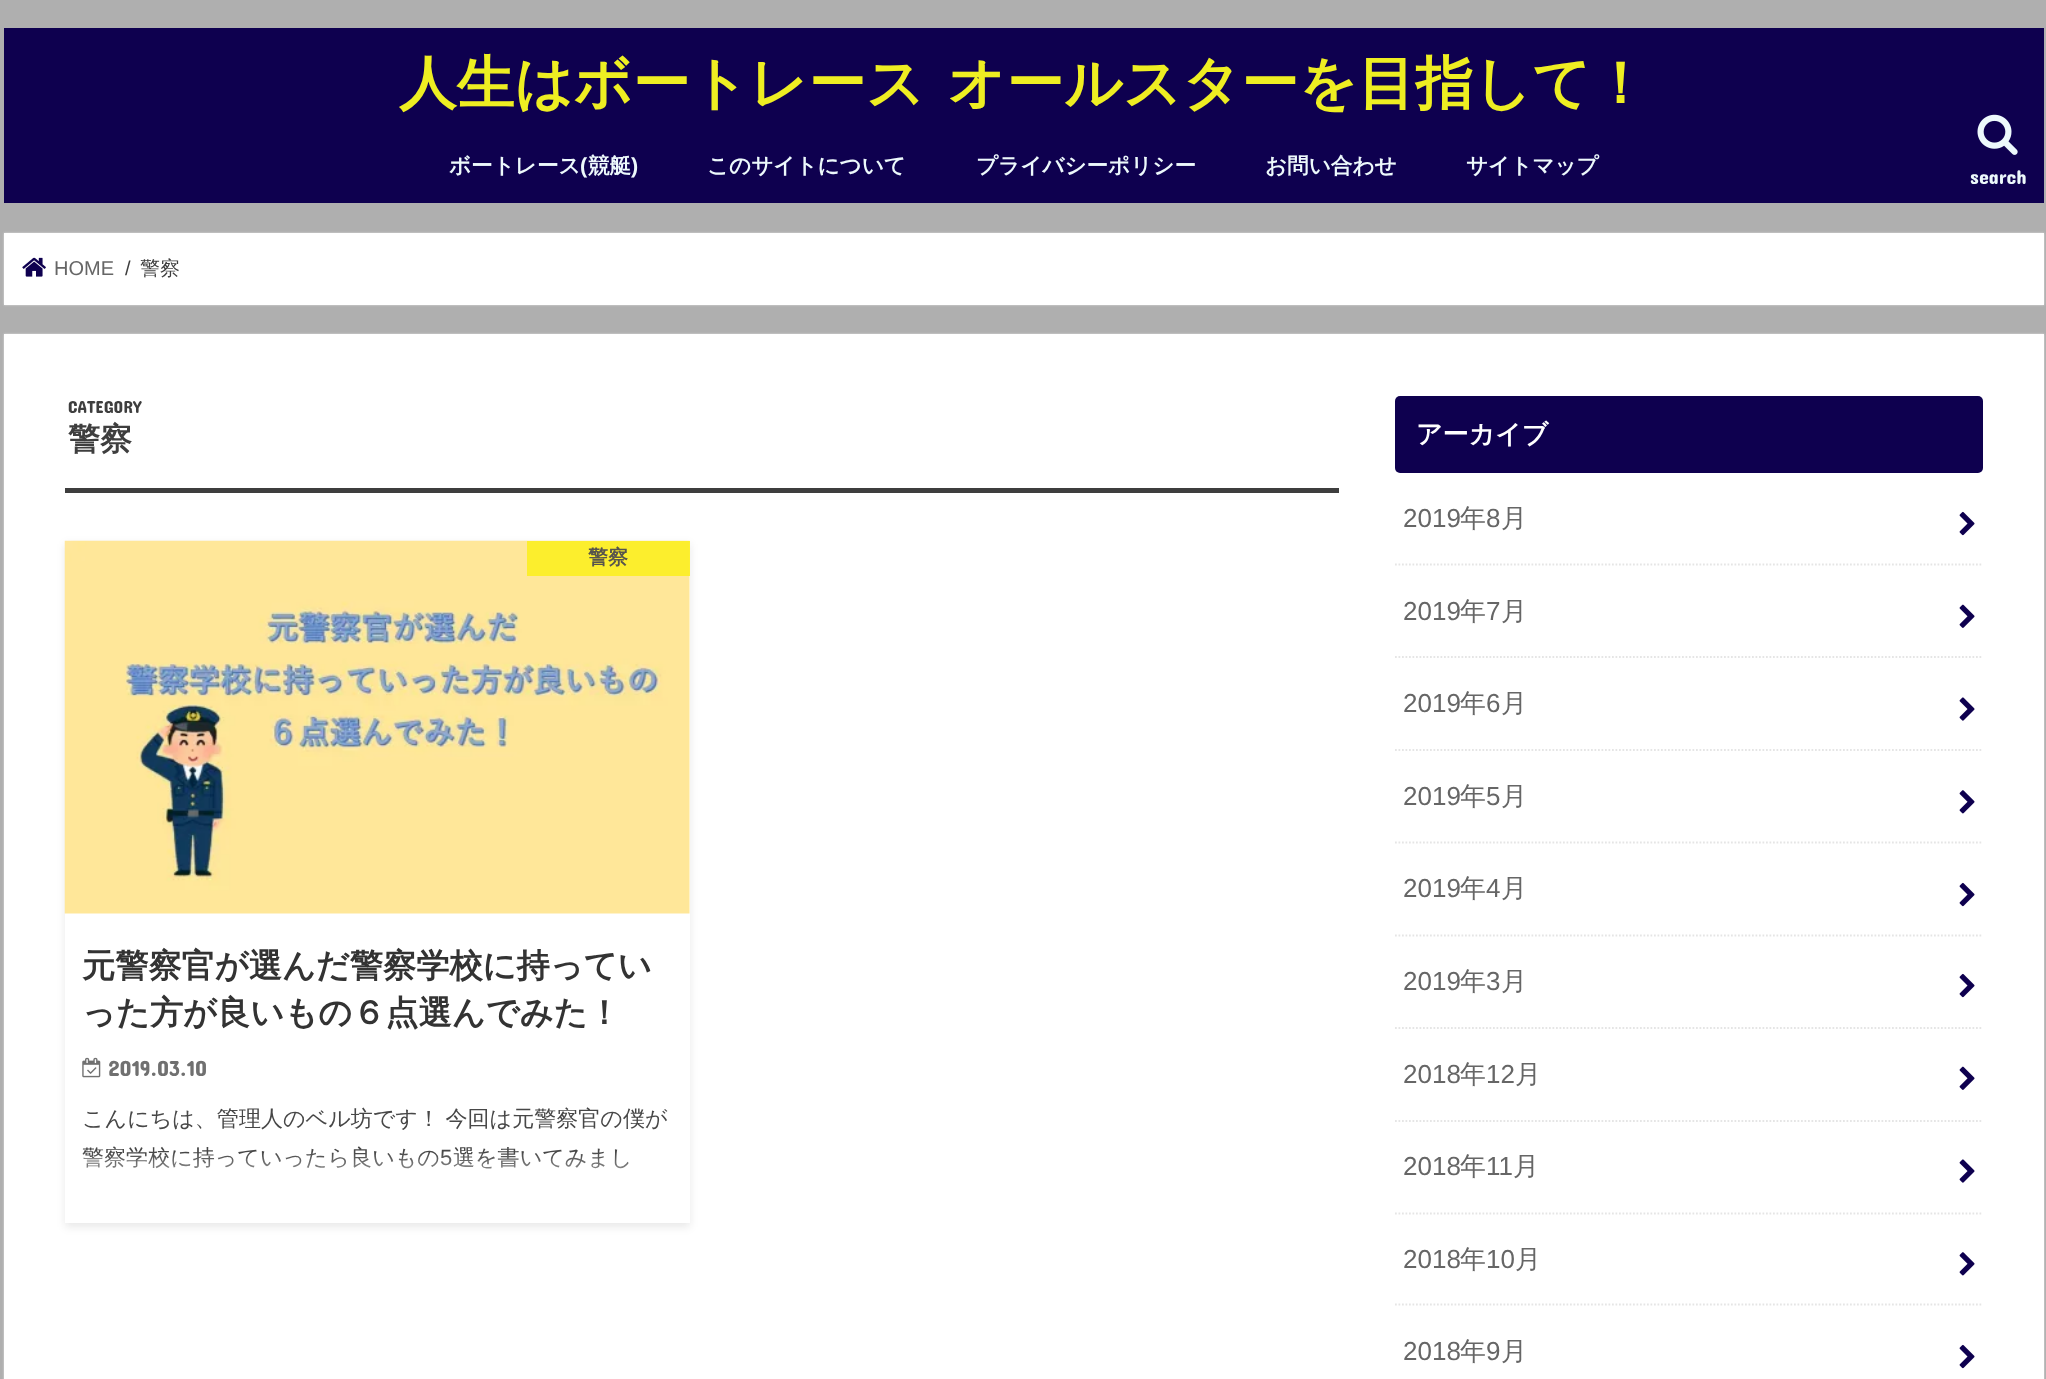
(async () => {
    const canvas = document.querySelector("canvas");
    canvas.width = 2046;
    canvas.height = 1379;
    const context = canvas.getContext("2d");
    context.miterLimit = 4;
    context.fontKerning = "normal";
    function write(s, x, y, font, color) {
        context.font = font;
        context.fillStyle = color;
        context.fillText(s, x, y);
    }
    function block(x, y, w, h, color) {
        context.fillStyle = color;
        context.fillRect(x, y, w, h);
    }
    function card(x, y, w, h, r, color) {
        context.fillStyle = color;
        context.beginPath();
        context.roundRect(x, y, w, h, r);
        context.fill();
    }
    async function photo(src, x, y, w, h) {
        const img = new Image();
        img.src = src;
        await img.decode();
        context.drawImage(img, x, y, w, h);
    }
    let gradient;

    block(0, 0, 2046, 1379, "rgb(175, 175, 175)");
    block(4, 28, 2040, 175, "rgb(14, 0, 79)");
    context.wordSpacing = "5px";
    write("人生はボートレース オールスターを目指して！", 399, 103, "bold 57.7px WenQuanYi Zen Hei", "rgb(238, 238, 34)");
    context.wordSpacing = "0px";
    write("ボートレース", 449, 173, "bold 21.6px WenQuanYi Zen Hei", "rgb(237, 249, 252)");
    write("(", 580, 173, "bold 21.6px Liberation Sans", "rgb(237, 249, 252)");
    write("競艇", 588, 173, "bold 21.6px WenQuanYi Zen Hei", "rgb(237, 249, 252)");
    write(")", 631, 173, "bold 21.6px Liberation Sans", "rgb(237, 249, 252)");
    write("このサイトについて", 707, 173, "bold 21.6px WenQuanYi Zen Hei", "rgb(237, 249, 252)");
    write("プライバシーポリシー", 976, 173, "bold 21.6px WenQuanYi Zen Hei", "rgb(237, 249, 252)");
    write("お問い合わせ", 1265, 173, "bold 21.6px WenQuanYi Zen Hei", "rgb(237, 249, 252)");
    write("サイトマップ", 1466, 173, "bold 21.6px WenQuanYi Zen Hei", "rgb(237, 249, 252)");
    await photo("media/1.png", 1977, 114, 41, 41);
    write("search", 1970, 184, "20px Concert One", "rgb(237, 249, 252)");
    context.fillStyle = "rgb(221, 221, 221)";
    context.filter = "blur(1px)";
    context.beginPath();
    context.rect(4, 233, 2040, 72);
    context.fill();
    context.filter = "none";
    block(4, 233, 2040, 72, "rgb(255, 255, 255)");
    await photo("media/2.png", 22, 257, 24, 20);
    write("HOME", 54, 275, "20px Liberation Sans", "rgb(102, 102, 102)");
    write("/", 125, 275, "20px Liberation Sans", "rgb(62, 62, 62)");
    write("警察", 140, 275, "500 20px WenQuanYi Zen Hei", "rgb(62, 62, 62)");
    context.fillStyle = "rgb(221, 221, 221)";
    context.filter = "blur(1px)";
    context.beginPath();
    context.rect(4, 334, 2040, 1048);
    context.fill();
    context.filter = "none";
    block(4, 334, 2040, 1045, "rgb(255, 255, 255)");
    block(65, 488, 1274, 5, "rgb(62, 62, 62)");
    write("CATEGORY", 68, 413, "17.5px Concert One", "rgb(62, 62, 62)");
    write("警察", 68, 450, "bold 32px WenQuanYi Zen Hei", "rgb(62, 62, 62)");
    context.fillStyle = "rgba(0, 0, 0, 0.09)";
    context.filter = "blur(4.5px)";
    context.beginPath();
    context.rect(65, 544, 625, 683);
    context.fill();
    context.filter = "none";
    block(65, 541, 625, 682, "rgb(255, 255, 255)");
    await photo("media/3.png", 64, 540, 626, 374);
    block(527, 541, 163, 35, "rgba(252, 238, 33, 0.9)");
    write("警察", 588, 564, "bold 20px WenQuanYi Zen Hei", "rgb(87, 84, 77)");
    write("元警察官が選んだ警察学校に持ってい", 82, 977, "bold 33.2px WenQuanYi Zen Hei", "rgb(51, 51, 51)");
    write("った方が良いもの６点選んでみた！", 82, 1024, "bold 33.2px WenQuanYi Zen Hei", "rgb(51, 51, 51)");
    await photo("media/4.png", 82, 1057, 19, 21);
    write("2019.03.10", 108, 1076, "22.05px Concert One", "rgb(112, 112, 112)");
    context.wordSpacing = "-1px";
    write("こんにちは、管理人のベル坊です！ 今回は元警察官の僕が", 82, 1126, "500 22.05px WenQuanYi Zen Hei", "rgb(71, 71, 71)");
    context.wordSpacing = "0px";
    write("警察学校に持っていったら良いもの", 82, 1165, "500 22.05px WenQuanYi Zen Hei", "rgb(71, 71, 71)");
    write("5", 440, 1165, "22.05px Liberation Sans", "rgb(71, 71, 71)");
    write("選を書いてみまし", 453, 1165, "500 22.05px WenQuanYi Zen Hei", "rgb(71, 71, 71)");
    gradient = context.createLinearGradient(394, 1152, 394, 1223);
    gradient.addColorStop(0, "rgba(255, 255, 255, 0)");
    gradient.addColorStop(0.7, "rgb(255, 255, 255)");
    gradient.addColorStop(1, "rgb(255, 255, 255)");
    context.fillStyle = gradient;
    context.fillRect(83, 1153, 546, 16);
    card(1395, 396, 588, 77, 5, "rgb(14, 0, 79)");
    write("アーカイブ", 1416, 443, "bold 26px WenQuanYi Zen Hei", "rgb(255, 255, 255)");
    context.beginPath();
    context.moveTo(1395, 564.5);
    context.lineTo(1983, 564.5);
    context.strokeStyle = "rgb(229, 229, 229)";
    context.lineWidth = 1.8;
    context.setLineDash([1.75, 1.75]);
    context.stroke();
    write("2019", 1403, 527, "26px Liberation Sans", "rgb(102, 102, 102)");
    write("年", 1460, 527, "500 26px WenQuanYi Zen Hei", "rgb(102, 102, 102)");
    write("8", 1486, 527, "26px Liberation Sans", "rgb(102, 102, 102)");
    write("月", 1501, 527, "500 26px WenQuanYi Zen Hei", "rgb(102, 102, 102)");
    await photo("media/5.png", 1959, 511, 16, 25);
    context.beginPath();
    context.moveTo(1395, 657);
    context.lineTo(1983, 657);
    context.stroke();
    write("2019", 1403, 620, "26px Liberation Sans", "rgb(102, 102, 102)");
    write("年", 1460, 620, "500 26px WenQuanYi Zen Hei", "rgb(102, 102, 102)");
    write("7", 1486, 620, "26px Liberation Sans", "rgb(102, 102, 102)");
    write("月", 1501, 620, "500 26px WenQuanYi Zen Hei", "rgb(102, 102, 102)");
    await photo("media/6.png", 1959, 604, 16, 24);
    context.beginPath();
    context.moveTo(1395, 750);
    context.lineTo(1983, 750);
    context.stroke();
    write("2019", 1403, 712, "26px Liberation Sans", "rgb(102, 102, 102)");
    write("年", 1460, 712, "500 26px WenQuanYi Zen Hei", "rgb(102, 102, 102)");
    write("6", 1486, 712, "26px Liberation Sans", "rgb(102, 102, 102)");
    write("月", 1501, 712, "500 26px WenQuanYi Zen Hei", "rgb(102, 102, 102)");
    await photo("media/7.png", 1959, 697, 16, 24);
    context.beginPath();
    context.moveTo(1395, 842.5);
    context.lineTo(1983, 842.5);
    context.stroke();
    write("2019", 1403, 805, "26px Liberation Sans", "rgb(102, 102, 102)");
    write("年", 1460, 805, "500 26px WenQuanYi Zen Hei", "rgb(102, 102, 102)");
    write("5", 1486, 805, "26px Liberation Sans", "rgb(102, 102, 102)");
    write("月", 1501, 805, "500 26px WenQuanYi Zen Hei", "rgb(102, 102, 102)");
    await photo("media/8.png", 1959, 790, 16, 24);
    context.beginPath();
    context.moveTo(1395, 935.5);
    context.lineTo(1983, 935.5);
    context.stroke();
    write("2019", 1403, 897, "26px Liberation Sans", "rgb(102, 102, 102)");
    write("年", 1460, 897, "500 26px WenQuanYi Zen Hei", "rgb(102, 102, 102)");
    write("4", 1486, 897, "26px Liberation Sans", "rgb(102, 102, 102)");
    write("月", 1501, 897, "500 26px WenQuanYi Zen Hei", "rgb(102, 102, 102)");
    await photo("media/5.png", 1959, 882, 16, 25);
    context.beginPath();
    context.moveTo(1395, 1028);
    context.lineTo(1983, 1028);
    context.stroke();
    write("2019", 1403, 990, "26px Liberation Sans", "rgb(102, 102, 102)");
    write("年", 1460, 990, "500 26px WenQuanYi Zen Hei", "rgb(102, 102, 102)");
    write("3", 1486, 990, "26px Liberation Sans", "rgb(102, 102, 102)");
    write("月", 1501, 990, "500 26px WenQuanYi Zen Hei", "rgb(102, 102, 102)");
    await photo("media/5.png", 1959, 973, 16, 25);
    context.beginPath();
    context.moveTo(1395, 1121);
    context.lineTo(1983, 1121);
    context.stroke();
    write("2018", 1403, 1083, "26px Liberation Sans", "rgb(102, 102, 102)");
    write("年", 1460, 1083, "500 26px WenQuanYi Zen Hei", "rgb(102, 102, 102)");
    write("12", 1486, 1083, "26px Liberation Sans", "rgb(102, 102, 102)");
    write("月", 1515, 1083, "500 26px WenQuanYi Zen Hei", "rgb(102, 102, 102)");
    await photo("media/6.png", 1959, 1066, 16, 24);
    context.beginPath();
    context.moveTo(1395, 1213.5);
    context.lineTo(1983, 1213.5);
    context.stroke();
    write("2018", 1403, 1175, "26px Liberation Sans", "rgb(102, 102, 102)");
    write("年", 1460, 1175, "500 26px WenQuanYi Zen Hei", "rgb(102, 102, 102)");
    write("11", 1486, 1175, "26px Liberation Sans", "rgb(102, 102, 102)");
    write("月", 1513, 1175, "500 26px WenQuanYi Zen Hei", "rgb(102, 102, 102)");
    await photo("media/7.png", 1959, 1159, 16, 24);
    context.beginPath();
    context.moveTo(1395, 1304.5);
    context.lineTo(1983, 1304.5);
    context.stroke();
    write("2018", 1403, 1268, "26px Liberation Sans", "rgb(102, 102, 102)");
    write("年", 1460, 1268, "500 26px WenQuanYi Zen Hei", "rgb(102, 102, 102)");
    write("10", 1486, 1268, "26px Liberation Sans", "rgb(102, 102, 102)");
    write("月", 1515, 1268, "500 26px WenQuanYi Zen Hei", "rgb(102, 102, 102)");
    await photo("media/8.png", 1959, 1252, 16, 24);
    write("2018", 1403, 1360, "26px Liberation Sans", "rgb(102, 102, 102)");
    write("年", 1460, 1360, "500 26px WenQuanYi Zen Hei", "rgb(102, 102, 102)");
    write("9", 1486, 1360, "26px Liberation Sans", "rgb(102, 102, 102)");
    write("月", 1501, 1360, "500 26px WenQuanYi Zen Hei", "rgb(102, 102, 102)");
    await photo("media/5.png", 1959, 1344, 16, 25);
})();
